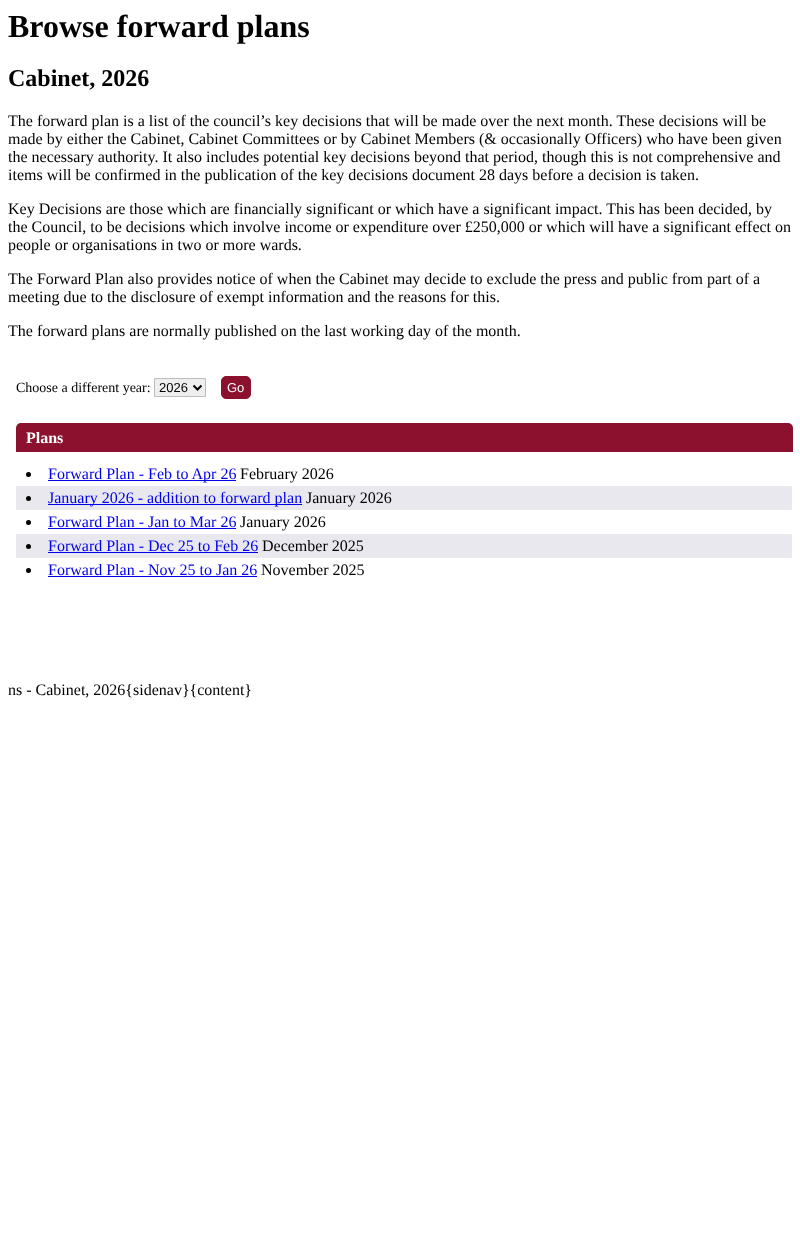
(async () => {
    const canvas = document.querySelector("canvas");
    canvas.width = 800;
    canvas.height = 1233;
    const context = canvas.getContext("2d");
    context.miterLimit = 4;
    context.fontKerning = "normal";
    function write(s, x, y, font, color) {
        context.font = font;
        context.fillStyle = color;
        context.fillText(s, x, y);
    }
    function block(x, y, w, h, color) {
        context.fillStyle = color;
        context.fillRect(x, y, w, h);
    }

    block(0, 0, 800, 1233, "rgb(255, 255, 255)");
    write("Browse forward plans", 8, 37, "bold 32px Liberation Serif", "rgb(0, 0, 0)");
    write("Cabinet, 2026", 8, 86, "bold 24px Liberation Serif", "rgb(0, 0, 0)");
    write("The forward plan is a list of the council’s key decisions that will be made over the next month. These decisions will be", 8, 126, "16px Liberation Serif", "rgb(0, 0, 0)");
    write("made by either the Cabinet, Cabinet Committees or by Cabinet Members (& occasionally Officers) who have been given", 8, 144, "16px Liberation Serif", "rgb(0, 0, 0)");
    write("the necessary authority. It also includes potential key decisions beyond that period, though this is not comprehensive and", 8, 162, "16px Liberation Serif", "rgb(0, 0, 0)");
    write("items will be confirmed in the publication of the key decisions document 28 days before a decision is taken.", 8, 180, "16px Liberation Serif", "rgb(0, 0, 0)");
    write("Key Decisions are those which are financially significant or which have a significant impact. This has been decided, by", 8, 214, "16px Liberation Serif", "rgb(0, 0, 0)");
    write("the Council, to be decisions which involve income or expenditure over £250,000 or which will have a significant effect on", 8, 232, "16px Liberation Serif", "rgb(0, 0, 0)");
    write("people or organisations in two or more wards.", 8, 250, "16px Liberation Serif", "rgb(0, 0, 0)");
    write("The Forward Plan also provides notice of when the Cabinet may decide to exclude the press and public from part of a", 8, 284, "16px Liberation Serif", "rgb(0, 0, 0)");
    write("meeting due to the disclosure of exempt information and the reasons for this.", 8, 302, "16px Liberation Serif", "rgb(0, 0, 0)");
    write("The forward plans are normally published on the last working day of the month.", 8, 336, "16px Liberation Serif", "rgb(0, 0, 0)");
    write("Choose a different year:", 16, 392, "14px Liberation Serif", "rgb(0, 0, 0)");
    context.fillStyle = "rgb(239, 239, 239)";
    context.beginPath();
    context.rect(154.5, 378.5, 51, 18);
    context.fill();
    context.strokeStyle = "rgb(189, 188, 188)";
    context.stroke();
    context.beginPath();
    context.moveTo(193.5, 385.5);
    context.lineTo(197.5, 389.5);
    context.lineTo(201.5, 385.5);
    context.strokeStyle = "rgb(0, 0, 0)";
    context.lineWidth = 2;
    context.stroke();
    write("2026", 159, 392, "13px Liberation Sans", "rgb(0, 0, 0)");
    context.fillStyle = "rgb(139, 17, 46)";
    context.beginPath();
    context.roundRect(221.5, 376.5, 29, 22, 4.5);
    context.fill();
    context.strokeStyle = "rgb(139, 17, 46)";
    context.lineWidth = 1;
    context.stroke();
    write("Go", 227, 392, "13px Liberation Sans", "rgb(255, 255, 255)");
    context.fillStyle = "rgb(139, 17, 46)";
    context.beginPath();
    context.roundRect(16, 423, 777, 29, [5, 5, 0, 0]);
    context.fill();
    write("Plans", 26, 443, "bold 16px Liberation Serif", "rgb(255, 255, 255)");
    context.fillStyle = "rgb(0, 0, 0)";
    context.beginPath();
    context.arc(28.5, 474.5, 2.5, 0, Math.PI * 2);
    context.fill();
    block(48, 480, 188, 1, "rgb(0, 0, 238)");
    write("Forward Plan - Feb to Apr 26", 48, 479, "16px Liberation Serif", "rgb(0, 0, 238)");
    write("February 2026", 240, 479, "16px Liberation Serif", "rgb(0, 0, 0)");
    block(16, 486, 776, 24, "rgb(232, 232, 238)");
    context.fillStyle = "rgb(0, 0, 0)";
    context.beginPath();
    context.arc(28.5, 498.5, 2.5, 0, Math.PI * 2);
    context.fill();
    block(48, 504, 254, 1, "rgb(0, 0, 238)");
    write("January 2026 - addition to forward plan", 48, 503, "16px Liberation Serif", "rgb(0, 0, 238)");
    write("January 2026", 306, 503, "16px Liberation Serif", "rgb(0, 0, 0)");
    context.beginPath();
    context.arc(28.5, 522.5, 2.5, 0, Math.PI * 2);
    context.fill();
    write("Forward Plan - Jan to Mar 26", 48, 527, "16px Liberation Serif", "rgb(0, 0, 238)");
    block(48, 528, 188, 1, "rgb(0, 0, 238)");
    write("January 2026", 240, 527, "16px Liberation Serif", "rgb(0, 0, 0)");
    block(16, 534, 776, 24, "rgb(232, 232, 238)");
    context.fillStyle = "rgb(0, 0, 0)";
    context.beginPath();
    context.arc(28.5, 546.5, 2.5, 0, Math.PI * 2);
    context.fill();
    write("Forward Plan - Dec 25 to Feb 26", 48, 551, "16px Liberation Serif", "rgb(0, 0, 238)");
    block(48, 552, 210, 1, "rgb(0, 0, 238)");
    write("December 2025", 262, 551, "16px Liberation Serif", "rgb(0, 0, 0)");
    context.beginPath();
    context.arc(28.5, 570.5, 2.5, 0, Math.PI * 2);
    context.fill();
    write("Forward Plan - Nov 25 to Jan 26", 48, 575, "16px Liberation Serif", "rgb(0, 0, 238)");
    block(48, 576, 209, 1, "rgb(0, 0, 238)");
    write("November 2025", 261, 575, "16px Liberation Serif", "rgb(0, 0, 0)");
    write("ns - Cabinet, 2026{sidenav}{content}", 8, 695, "16px Liberation Serif", "rgb(0, 0, 0)");
})();
